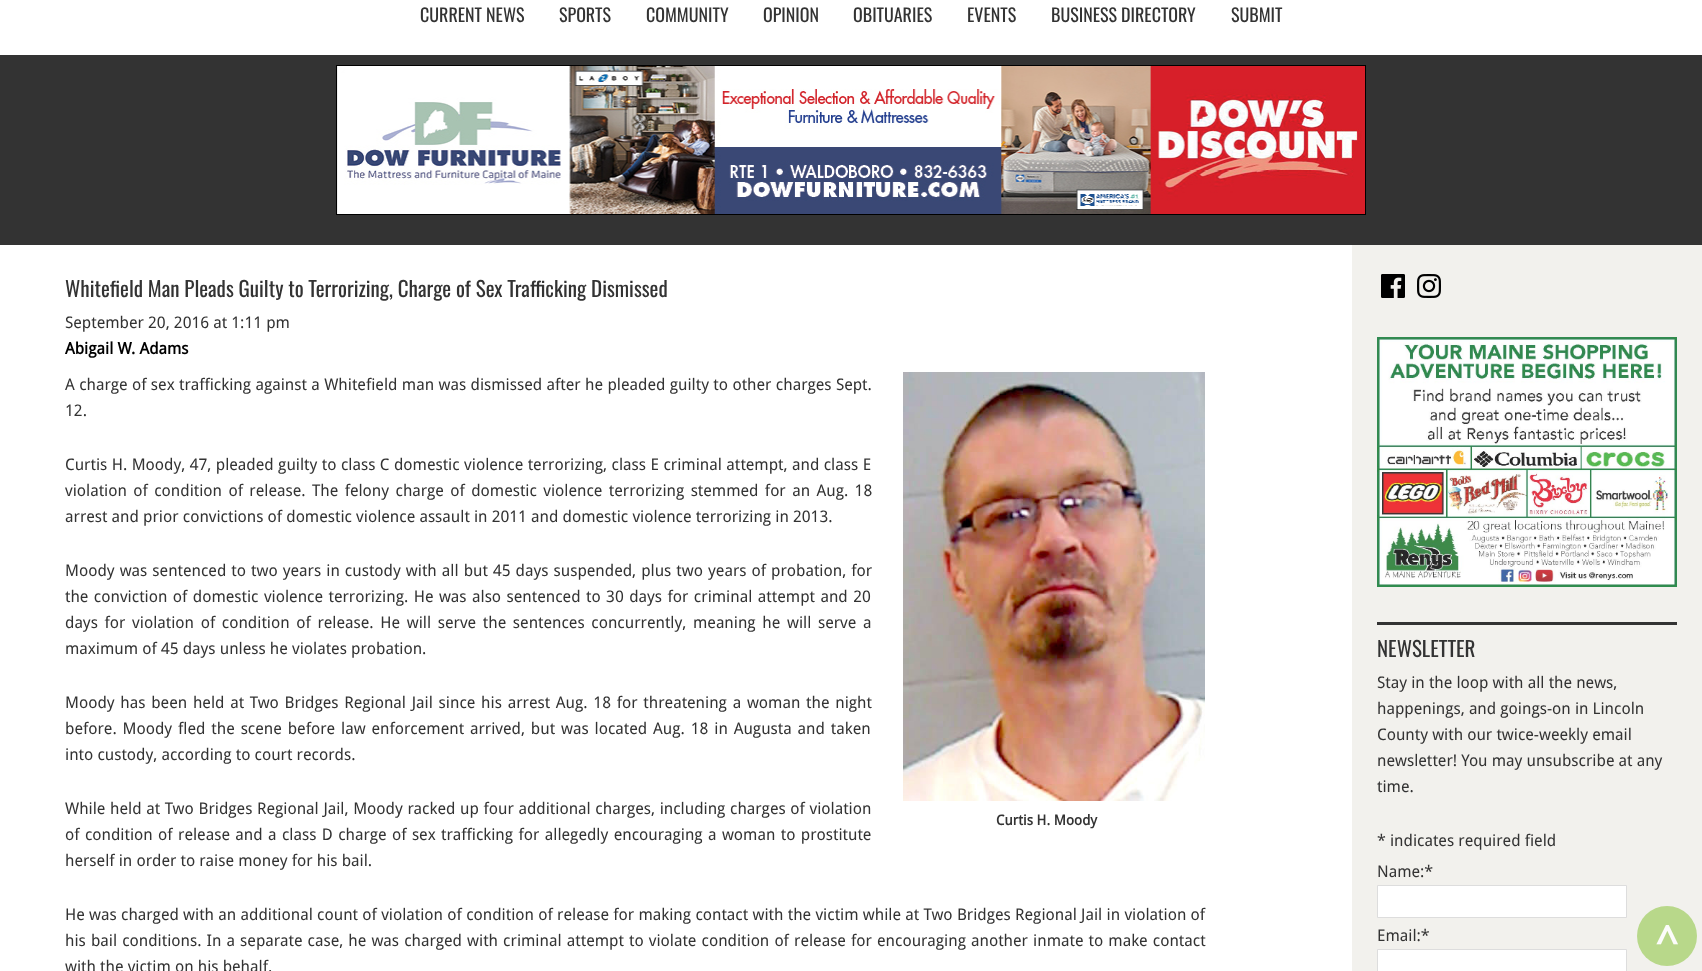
(async () => {
    const canvas = document.querySelector("canvas");
    canvas.width = 1702;
    canvas.height = 971;
    const context = canvas.getContext("2d");
    context.miterLimit = 4;
    context.fontKerning = "normal";
    function write(s, x, y, font, color) {
        context.font = font;
        context.fillStyle = color;
        context.fillText(s, x, y);
    }
    function block(x, y, w, h, color) {
        context.fillStyle = color;
        context.fillRect(x, y, w, h);
    }
    async function photo(src, x, y, w, h) {
        const img = new Image();
        img.src = src;
        await img.decode();
        context.drawImage(img, x, y, w, h);
    }

    block(0, 0, 1702, 971, "rgb(255, 255, 255)");
    write("CURRENT NEWS", 420, 22, "18px Oswald", "rgb(51, 51, 51)");
    write("SPORTS", 559, 22, "18px Oswald", "rgb(51, 51, 51)");
    write("COMMUNITY", 646, 22, "18px Oswald", "rgb(51, 51, 51)");
    write("OPINION", 763, 22, "18px Oswald", "rgb(51, 51, 51)");
    write("OBITUARIES", 853, 22, "18px Oswald", "rgb(51, 51, 51)");
    write("EVENTS", 967, 22, "18px Oswald", "rgb(51, 51, 51)");
    write("BUSINESS DIRECTORY", 1051, 22, "18px Oswald", "rgb(51, 51, 51)");
    write("SUBMIT", 1231, 22, "18px Oswald", "rgb(51, 51, 51)");
    block(0, 55, 1702, 190, "rgb(51, 51, 51)");
    await photo("media/1.png", 336, 65, 1030, 150);
    write("Whitefield Man Pleads Guilty to Terrorizing, Charge of Sex Trafficking Dismissed", 65, 297, "21px Oswald", "rgb(51, 51, 51)");
    write("September 20, 2016 at 1:11 pm", 65, 328, "16px Droid Sans", "rgb(51, 51, 51)");
    write("Abigail W. Adams", 65, 354, "bold 16px Droid Sans", "rgb(0, 0, 0)");
    context.wordSpacing = "0.25px";
    write("A charge of sex trafficking against a Whitefield man was dismissed after he pleaded guilty to other charges Sept.", 65, 390, "16px Droid Sans", "rgb(51, 51, 51)");
    context.wordSpacing = "0px";
    write("12.", 65, 416, "16px Droid Sans", "rgb(51, 51, 51)");
    context.wordSpacing = "0.3px";
    write("Curtis H. Moody, 47, pleaded guilty to class C domestic violence terrorizing, class E criminal attempt, and class E", 65, 470, "16px Droid Sans", "rgb(51, 51, 51)");
    context.wordSpacing = "2.25px";
    write("violation of condition of release. The felony charge of domestic violence terrorizing stemmed for an Aug. 18", 65, 496, "16px Droid Sans", "rgb(51, 51, 51)");
    context.wordSpacing = "0px";
    write("arrest and prior convictions of domestic violence assault in 2011 and domestic violence terrorizing in 2013.", 65, 522, "16px Droid Sans", "rgb(51, 51, 51)");
    context.wordSpacing = "0.9px";
    write("Moody was sentenced to two years in custody with all but 45 days suspended, plus two years of probation, for", 65, 576, "16px Droid Sans", "rgb(51, 51, 51)");
    context.wordSpacing = "1.3px";
    write("the conviction of domestic violence terrorizing. He was also sentenced to 30 days for criminal attempt and 20", 65, 602, "16px Droid Sans", "rgb(51, 51, 51)");
    context.wordSpacing = "2.5px";
    write("days for violation of condition of release. He will serve the sentences concurrently, meaning he will serve a", 65, 628, "16px Droid Sans", "rgb(51, 51, 51)");
    context.wordSpacing = "0px";
    write("maximum of 45 days unless he violates probation.", 65, 654, "16px Droid Sans", "rgb(51, 51, 51)");
    context.wordSpacing = "1.6px";
    write("Moody has been held at Two Bridges Regional Jail since his arrest Aug. 18 for threatening a woman the night", 65, 708, "16px Droid Sans", "rgb(51, 51, 51)");
    context.wordSpacing = "1.75px";
    write("before. Moody fled the scene before law enforcement arrived, but was located Aug. 18 in Augusta and taken", 65, 734, "16px Droid Sans", "rgb(51, 51, 51)");
    context.wordSpacing = "0px";
    write("into custody, according to court records.", 65, 760, "16px Droid Sans", "rgb(51, 51, 51)");
    context.wordSpacing = "0.5px";
    write("While held at Two Bridges Regional Jail, Moody racked up four additional charges, including charges of violation", 65, 814, "16px Droid Sans", "rgb(51, 51, 51)");
    context.wordSpacing = "1.25px";
    write("of condition of release and a class D charge of sex trafficking for allegedly encouraging a woman to prostitute", 65, 840, "16px Droid Sans", "rgb(51, 51, 51)");
    context.wordSpacing = "0px";
    write("herself in order to raise money for his bail.", 65, 866, "16px Droid Sans", "rgb(51, 51, 51)");
    await photo("media/2.png", 903, 372, 302, 429);
    write("Curtis H. Moody", 996, 825, "bold 14px Droid Sans", "rgb(51, 51, 51)");
    context.wordSpacing = "0.15px";
    write("He was charged with an additional count of violation of condition of release for making contact with the victim while at Two Bridges Regional Jail in violation of", 65, 920, "16px Droid Sans", "rgb(51, 51, 51)");
    context.wordSpacing = "0.95px";
    write("his bail conditions. In a separate case, he was charged with criminal attempt to violate condition of release for encouraging another inmate to make contact", 65, 946, "16px Droid Sans", "rgb(51, 51, 51)");
    context.wordSpacing = "0px";
    write("with the victim on his behalf.", 65, 972, "16px Droid Sans", "rgb(51, 51, 51)");
    block(1352, 245, 350, 726, "rgb(242, 241, 237)");
    await photo("media/3.png", 1381, 274, 24, 24);
    await photo("media/4.png", 1417, 274, 24, 24);
    await photo("media/5.png", 1377, 337, 300, 250);
    block(1377, 622, 300, 3, "rgb(51, 51, 51)");
    write("NEWSLETTER", 1377, 657, "21px Oswald", "rgb(51, 51, 51)");
    write("Stay in the loop with all the news,", 1377, 688, "16px Droid Sans", "rgb(51, 51, 51)");
    write("happenings, and goings-on in Lincoln", 1377, 714, "16px Droid Sans", "rgb(51, 51, 51)");
    write("County with our twice-weekly email", 1377, 740, "16px Droid Sans", "rgb(51, 51, 51)");
    write("newsletter! You may unsubscribe at any", 1377, 766, "16px Droid Sans", "rgb(51, 51, 51)");
    write("time.", 1377, 792, "16px Droid Sans", "rgb(51, 51, 51)");
    write("* indicates required field", 1377, 846, "16px Droid Sans", "rgb(51, 51, 51)");
    write("Name:*", 1377, 877, "16px Droid Sans", "rgb(51, 51, 51)");
    context.fillStyle = "rgb(255, 255, 255)";
    context.beginPath();
    context.rect(1377.5, 885.5, 249, 32);
    context.fill();
    context.strokeStyle = "rgb(221, 221, 221)";
    context.stroke();
    write("Email:*", 1377, 941, "16px Droid Sans", "rgb(51, 51, 51)");
    context.fillStyle = "rgb(255, 255, 255)";
    context.beginPath();
    context.rect(1377.5, 949.5, 249, 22);
    context.fill();
    context.stroke();
    context.fillStyle = "rgb(184, 216, 138)";
    context.beginPath();
    context.arc(1667, 936, 30, 0, Math.PI * 2);
    context.fill();
    write("^", 1656, 955, "bold 40px Droid Sans", "rgb(252, 252, 251)");
})();
